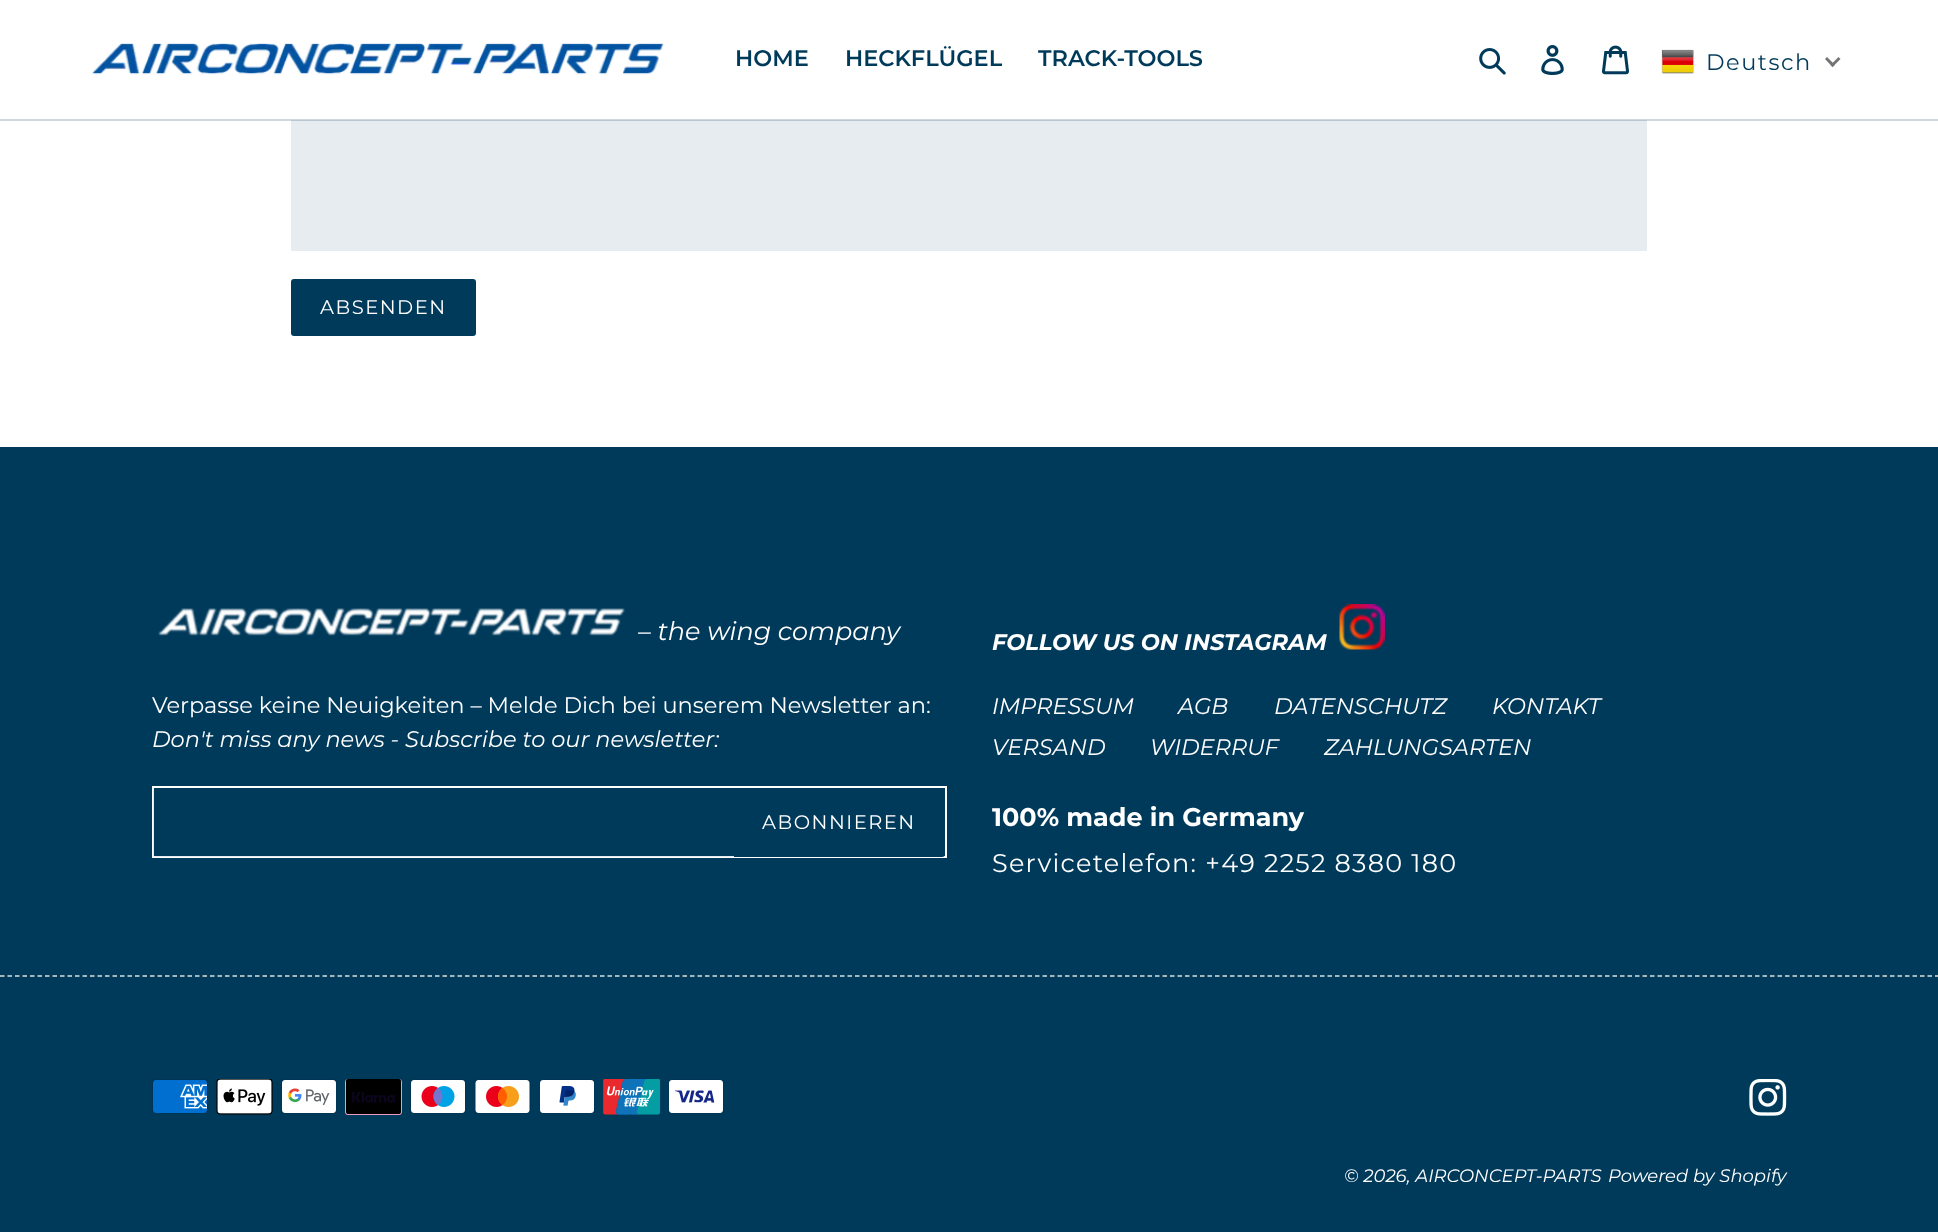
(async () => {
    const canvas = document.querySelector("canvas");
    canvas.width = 1938;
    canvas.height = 1232;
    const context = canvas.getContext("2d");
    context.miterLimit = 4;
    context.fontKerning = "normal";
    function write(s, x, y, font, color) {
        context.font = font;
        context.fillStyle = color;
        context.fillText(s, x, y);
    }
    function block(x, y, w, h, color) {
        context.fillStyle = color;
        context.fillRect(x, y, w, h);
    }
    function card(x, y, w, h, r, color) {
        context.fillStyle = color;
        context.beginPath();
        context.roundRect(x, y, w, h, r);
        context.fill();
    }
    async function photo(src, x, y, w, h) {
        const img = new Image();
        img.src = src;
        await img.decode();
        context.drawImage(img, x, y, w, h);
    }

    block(0, 0, 1938, 1232, "rgb(255, 255, 255)");
    block(0, 119, 1938, 2, "rgb(204, 216, 222)");
    await photo("media/1.png", 92, 43, 572, 32);
    write("HOME", 735, 66, "600 22.5px Montserrat", "rgb(0, 58, 91)");
    write("HECKFLÜGEL", 845, 66, "600 22.5px Montserrat", "rgb(0, 58, 91)");
    write("TRACK-TOOLS", 1038, 66, "600 22.5px Montserrat", "rgb(0, 58, 91)");
    await photo("media/2.png", 1479, 48, 27, 27);
    await photo("media/3.png", 1541, 45, 23, 30);
    await photo("media/4.png", 1602, 45, 27, 30);
    await photo("media/5.png", 1661, 49, 33, 25);
    context.letterSpacing = "1.5px";
    write("Deutsch", 1706, 70, "22.5px Montserrat", "rgb(0, 58, 91)");
    context.fillStyle = "rgb(116, 116, 116)";
    context.beginPath();
    context.moveTo(1838.5, 57);
    context.lineTo(1840.5, 59);
    context.lineTo(1832.5, 67);
    context.lineTo(1830.5, 65);
    context.closePath();
    context.fill();
    context.beginPath();
    context.moveTo(1827, 57);
    context.lineTo(1835, 65);
    context.lineTo(1832.5, 67);
    context.lineTo(1825, 59);
    context.closePath();
    context.fill();
    block(291, 121, 1356, 130, "rgb(230, 236, 239)");
    block(291, 120, 1356, 1, "rgb(184, 200, 209)");
    card(291, 279, 185, 57, 3, "rgb(0, 58, 91)");
    write("ABSENDEN", 320, 314, "19.5px Montserrat", "rgb(255, 255, 255)");
    block(0, 447, 1938, 785, "rgb(0, 58, 91)");
    await photo("media/6.png", 158, 608, 467, 28);
    context.letterSpacing = "0px";
    write("– the wing company", 638, 640, "italic 25.5px Montserrat", "rgb(255, 255, 255)");
    write("Verpasse keine Neuigkeiten – Melde Dich bei unserem Newsletter an:", 152, 713, "22.5px Montserrat", "rgb(255, 255, 255)");
    write("Don't miss any news - Subscribe to our newsletter:", 152, 747, "italic 22.5px Montserrat", "rgb(255, 255, 255)");
    context.strokeStyle = "rgb(255, 255, 255)";
    context.lineWidth = 2;
    context.strokeRect(153, 787, 793, 70);
    context.fillStyle = "rgba(0, 58, 91, 0.1)";
    context.beginPath();
    context.roundRect(153, 788, 581, 69, [3, 0, 0, 3]);
    context.fill();
    context.fillStyle = "rgb(0, 58, 91)";
    context.beginPath();
    context.roundRect(734, 788, 211, 69, [0, 3, 3, 0]);
    context.fill();
    context.letterSpacing = "1.5px";
    write("ABONNIEREN", 762, 829, "19.5px Montserrat", "rgb(255, 255, 255)");
    context.letterSpacing = "0px";
    write("FOLLOW US ON INSTAGRAM", 992, 650, "italic bold 22.5px Montserrat", "rgb(255, 255, 255)");
    await photo("media/7.png", 1339, 604, 46, 46);
    write("IMPRESSUM", 992, 714, "italic 22.5px Montserrat", "rgb(255, 255, 255)");
    write("AGB", 1178, 714, "italic 22.5px Montserrat", "rgb(255, 255, 255)");
    write("DATENSCHUTZ", 1274, 714, "italic 22.5px Montserrat", "rgb(255, 255, 255)");
    write("KONTAKT", 1492, 714, "italic 22.5px Montserrat", "rgb(255, 255, 255)");
    write("VERSAND", 992, 755, "italic 22.5px Montserrat", "rgb(255, 255, 255)");
    write("WIDERRUF", 1150, 755, "italic 22.5px Montserrat", "rgb(255, 255, 255)");
    write("ZAHLUNGSARTEN", 1324, 755, "italic 22.5px Montserrat", "rgb(255, 255, 255)");
    write("100% made in Germany", 992, 826, "bold 25.5px Montserrat", "rgb(255, 255, 255)");
    context.letterSpacing = "1.25px";
    write("Servicetelefon: +49 2252 8380 180", 992, 872, "25.5px Montserrat", "rgb(255, 255, 255)");
    context.beginPath();
    context.moveTo(0, 976);
    context.lineTo(1938, 976);
    context.strokeStyle = "rgb(221, 221, 221)";
    context.lineWidth = 1.5;
    context.setLineDash([4.5, 3]);
    context.stroke();
    await photo("media/8.png", 152, 1079, 56, 35);
    await photo("media/9.png", 216, 1079, 57, 36);
    await photo("media/10.png", 281, 1079, 56, 35);
    await photo("media/11.png", 345, 1079, 57, 36);
    await photo("media/12.png", 410, 1079, 56, 35);
    await photo("media/13.png", 474, 1079, 57, 35);
    await photo("media/14.png", 539, 1079, 56, 35);
    await photo("media/15.png", 603, 1079, 57, 36);
    await photo("media/16.png", 668, 1079, 56, 35);
    await photo("media/17.png", 1749, 1079, 38, 37);
    context.letterSpacing = "0px";
    write("© 2026, AIRCONCEPT-PARTS", 1344, 1182, "italic 18px Montserrat", "rgb(255, 255, 255)");
    write("Powered by Shopify", 1608, 1182, "italic 18px Montserrat", "rgb(255, 255, 255)");
})();
